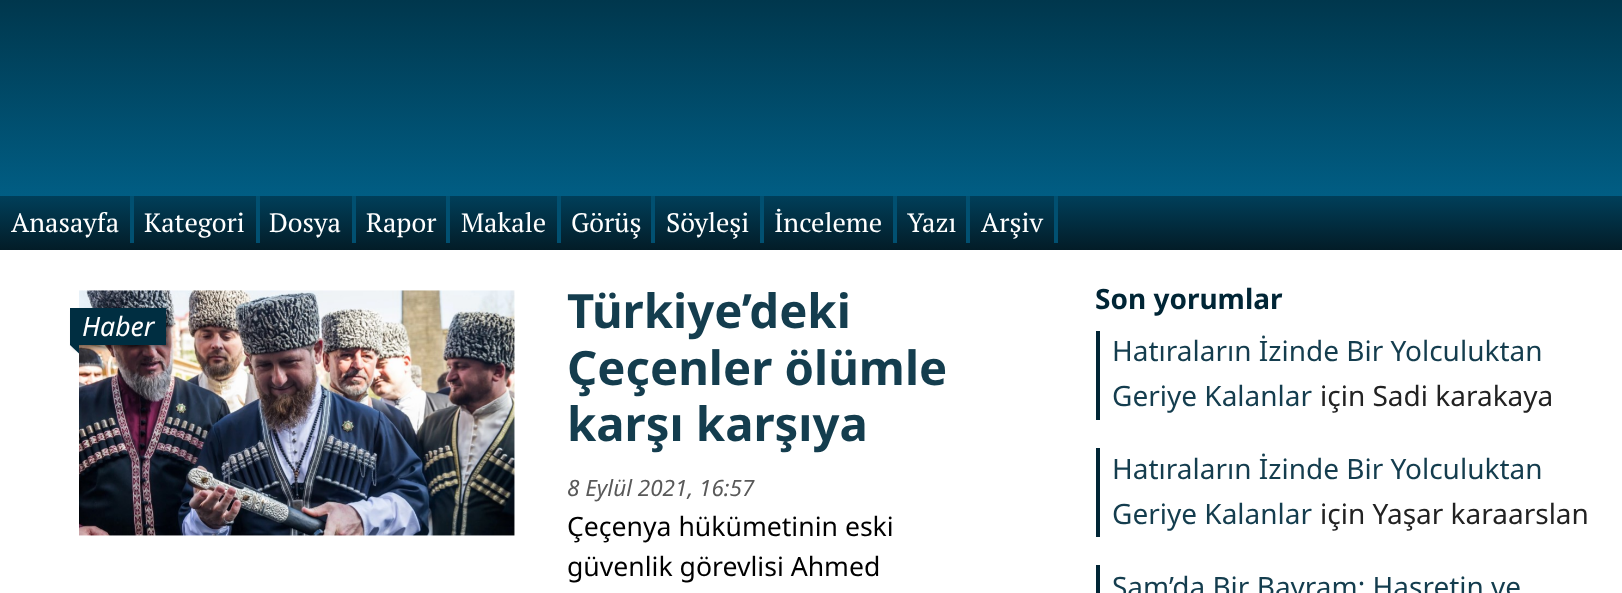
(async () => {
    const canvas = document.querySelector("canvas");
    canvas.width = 1622;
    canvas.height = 593;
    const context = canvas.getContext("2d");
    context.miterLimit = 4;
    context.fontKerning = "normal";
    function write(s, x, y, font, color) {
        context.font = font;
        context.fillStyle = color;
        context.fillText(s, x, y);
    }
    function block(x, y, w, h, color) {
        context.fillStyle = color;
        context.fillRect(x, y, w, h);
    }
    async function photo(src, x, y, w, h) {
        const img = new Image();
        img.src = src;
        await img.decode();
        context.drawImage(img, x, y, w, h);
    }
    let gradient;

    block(0, 0, 1622, 593, "rgb(255, 255, 255)");
    gradient = context.createLinearGradient(811, 0, 811, 250);
    gradient.addColorStop(0, "rgb(0, 55, 77)");
    gradient.addColorStop(1, "rgb(1, 104, 147)");
    context.fillStyle = gradient;
    context.fillRect(0, 0, 1622, 196);
    gradient = context.createLinearGradient(811, 196, 811, 250);
    gradient.addColorStop(0, "rgb(0, 63, 90)");
    gradient.addColorStop(1, "rgb(3, 28, 39)");
    context.fillStyle = gradient;
    context.fillRect(0, 196, 1622, 54);
    block(130, 196, 4, 47, "rgb(1, 80, 113)");
    write("Anasayfa", 11, 232, "26.6px PT Serif", "rgb(255, 255, 255)");
    block(256, 196, 4, 47, "rgb(1, 80, 113)");
    write("Kategori", 144, 232, "26.6px PT Serif", "rgb(255, 255, 255)");
    block(352, 196, 4, 47, "rgb(1, 80, 113)");
    write("Dosya", 269, 232, "26.6px PT Serif", "rgb(255, 255, 255)");
    block(446, 196, 4, 47, "rgb(1, 80, 113)");
    write("Rapor", 366, 232, "26.6px PT Serif", "rgb(255, 255, 255)");
    block(557, 196, 4, 47, "rgb(1, 80, 113)");
    write("Makale", 461, 232, "26.6px PT Serif", "rgb(255, 255, 255)");
    block(651, 196, 4, 47, "rgb(1, 80, 113)");
    write("Görüş", 571, 232, "26.6px PT Serif", "rgb(255, 255, 255)");
    block(760, 196, 4, 47, "rgb(1, 80, 113)");
    write("Söyleşi", 666, 232, "26.6px PT Serif", "rgb(255, 255, 255)");
    block(893, 196, 4, 47, "rgb(1, 80, 113)");
    write("İnceleme", 774, 232, "26.6px PT Serif", "rgb(255, 255, 255)");
    block(966, 196, 4, 47, "rgb(1, 80, 113)");
    write("Yazı", 907, 232, "26.6px PT Serif", "rgb(255, 255, 255)");
    block(1054, 196, 4, 47, "rgb(1, 80, 113)");
    write("Arşiv", 981, 232, "26.6px PT Serif", "rgb(255, 255, 255)");
    await photo("media/1.png", 79, 290, 436, 246);
    context.fillStyle = "rgba(0, 0, 0, 0.5)";
    context.filter = "blur(2px)";
    context.beginPath();
    context.rect(74, 312, 96, 36);
    context.fill();
    context.filter = "none";
    block(70, 308, 96, 37, "rgb(0, 46, 65)");
    write("Haber", 82, 336, "italic 26.6px Noto Sans", "rgb(255, 255, 255)");
    context.fillStyle = "rgb(0, 46, 65)";
    context.beginPath();
    context.moveTo(79, 345);
    context.lineTo(79, 353.5);
    context.lineTo(70, 345);
    context.closePath();
    context.fill();
    write("Türkiye’deki", 567, 328, "bold 47.25px Noto Sans", "rgb(20, 61, 78)");
    write("Çeçenler ölümle", 567, 385, "bold 47.25px Noto Sans", "rgb(20, 61, 78)");
    write("karşı karşıya", 567, 441, "bold 47.25px Noto Sans", "rgb(20, 61, 78)");
    write("8 Eylül 2021, 16:57", 567, 496, "italic 22.5px Noto Sans", "rgb(89, 89, 89)");
    write("Çeçenya hükümetinin eski", 567, 536, "26.6px Noto Sans", "rgb(0, 0, 0)");
    write("güvenlik görevlisi Ahmed", 567, 576, "26.6px Noto Sans", "rgb(0, 0, 0)");
    write("Son yorumlar", 1095, 309, "bold 28px Noto Sans", "rgb(0, 37, 53)");
    block(1096, 331, 4, 89, "rgb(0, 37, 53)");
    write("Hatıraların İzinde Bir Yolculuktan", 1112, 361, "28px Noto Sans", "rgb(20, 61, 78)");
    write("Geriye Kalanlar", 1112, 406, "28px Noto Sans", "rgb(20, 61, 78)");
    write("için Sadi karakaya", 1320, 406, "28px Noto Sans", "rgb(34, 34, 34)");
    block(1096, 448, 4, 89, "rgb(0, 37, 53)");
    write("Hatıraların İzinde Bir Yolculuktan", 1112, 479, "28px Noto Sans", "rgb(20, 61, 78)");
    write("Geriye Kalanlar", 1112, 524, "28px Noto Sans", "rgb(20, 61, 78)");
    write("için Yaşar karaarslan", 1320, 524, "28px Noto Sans", "rgb(34, 34, 34)");
    block(1096, 565, 4, 28, "rgb(0, 37, 53)");
    write("Şam’da Bir Bayram: Hasretin ve", 1112, 597, "28px Noto Sans", "rgb(20, 61, 78)");
})();
